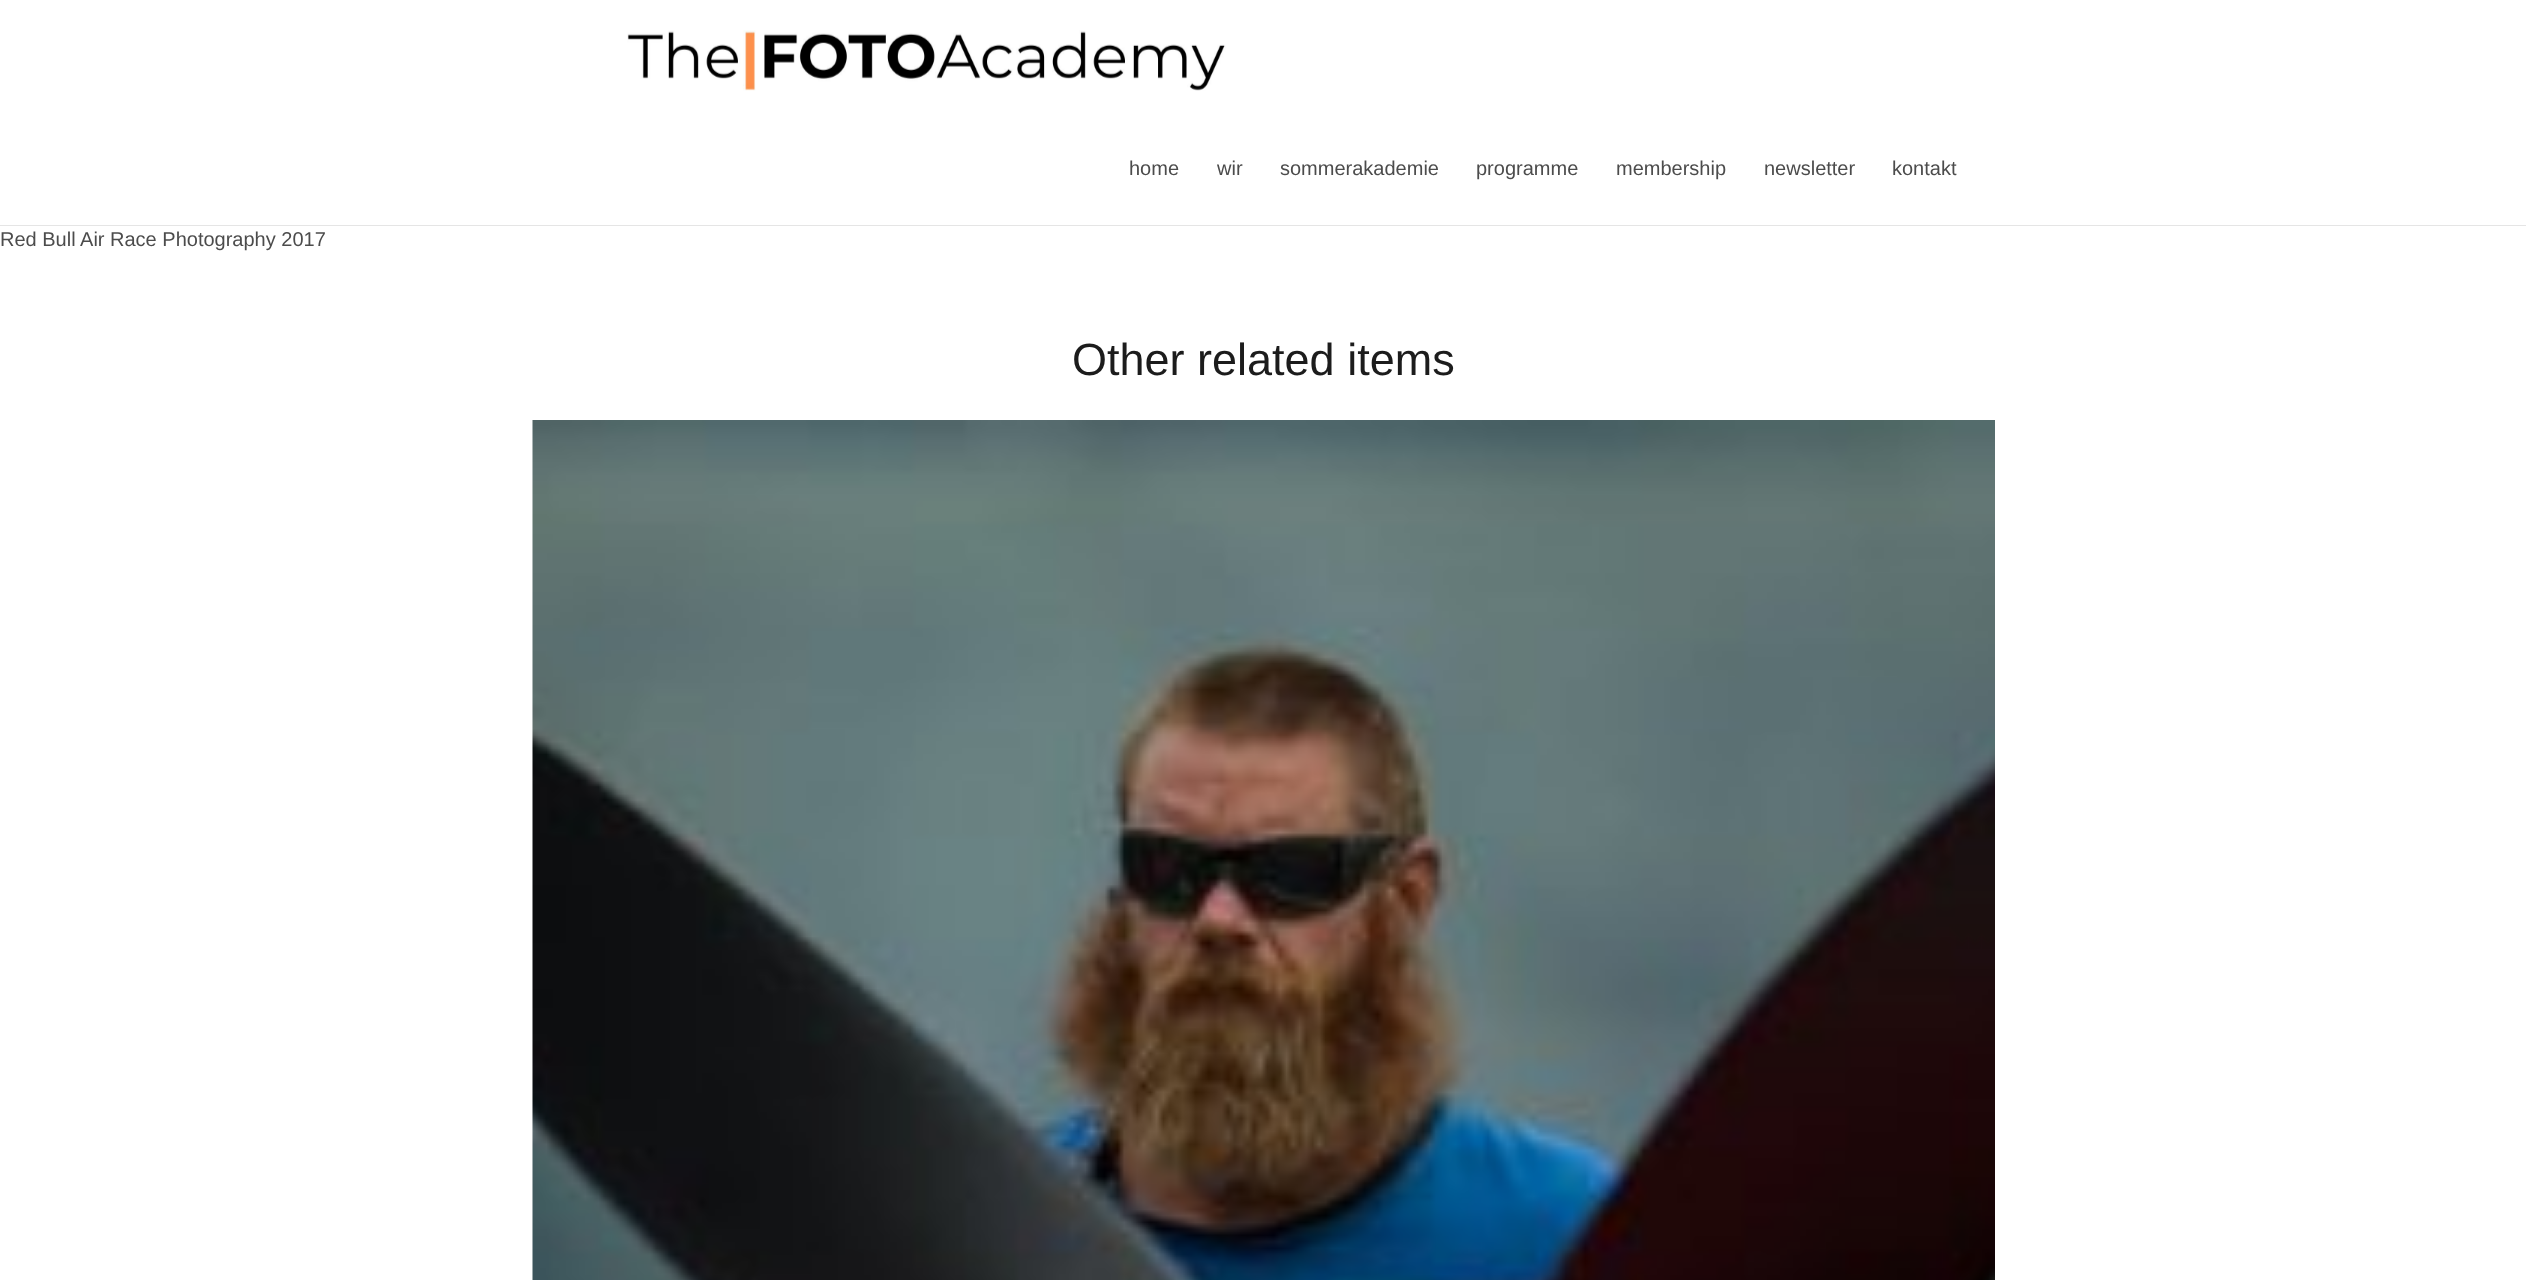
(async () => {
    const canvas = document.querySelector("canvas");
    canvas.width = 2526;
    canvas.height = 1280;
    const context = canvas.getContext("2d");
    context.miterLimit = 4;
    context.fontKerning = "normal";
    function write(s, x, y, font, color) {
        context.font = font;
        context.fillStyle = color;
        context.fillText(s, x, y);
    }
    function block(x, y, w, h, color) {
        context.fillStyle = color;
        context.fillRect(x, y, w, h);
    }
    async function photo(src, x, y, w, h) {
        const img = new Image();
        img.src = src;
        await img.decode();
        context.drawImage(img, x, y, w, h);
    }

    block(0, 0, 2526, 1280, "rgb(255, 255, 255)");
    context.save();
    context.beginPath();
    context.rect(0, 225, 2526, 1);
    context.clip();
    context.fillStyle = "rgba(0, 0, 0, 0.1)";
    context.filter = "blur(0.5px)";
    context.beginPath();
    context.rect(0, 1, 2526, 225);
    context.fill();
    context.filter = "none";
    context.restore();
    await photo("media/1.png", 627, 30, 599, 61);
    write("home", 1129, 175, "20px Liberation Sans", "rgb(76, 76, 76)");
    write("wir", 1217, 175, "20px Liberation Sans", "rgb(76, 76, 76)");
    write("sommerakademie", 1280, 175, "20px Liberation Sans", "rgb(76, 76, 76)");
    write("programme", 1476, 175, "20px Liberation Sans", "rgb(76, 76, 76)");
    write("membership", 1616, 175, "20px Liberation Sans", "rgb(76, 76, 76)");
    write("newsletter", 1764, 175, "20px Liberation Sans", "rgb(76, 76, 76)");
    write("kontakt", 1892, 175, "20px Liberation Sans", "rgb(76, 76, 76)");
    write("Red Bull Air Race Photography 2017", 0, 246, "20px Liberation Sans", "rgb(76, 76, 76)");
    write("Other related items", 1072, 375, "45px Liberation Sans", "rgb(28, 28, 28)");
    await photo("media/2.png", 532, 420, 1463, 860);
})();
